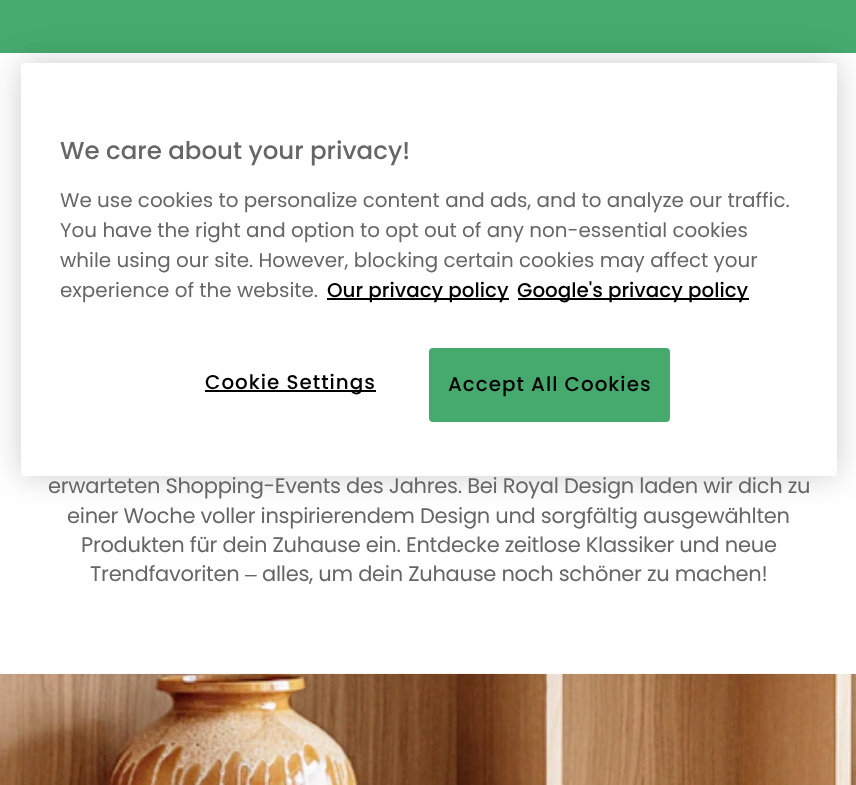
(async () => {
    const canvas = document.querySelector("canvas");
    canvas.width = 856;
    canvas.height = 785;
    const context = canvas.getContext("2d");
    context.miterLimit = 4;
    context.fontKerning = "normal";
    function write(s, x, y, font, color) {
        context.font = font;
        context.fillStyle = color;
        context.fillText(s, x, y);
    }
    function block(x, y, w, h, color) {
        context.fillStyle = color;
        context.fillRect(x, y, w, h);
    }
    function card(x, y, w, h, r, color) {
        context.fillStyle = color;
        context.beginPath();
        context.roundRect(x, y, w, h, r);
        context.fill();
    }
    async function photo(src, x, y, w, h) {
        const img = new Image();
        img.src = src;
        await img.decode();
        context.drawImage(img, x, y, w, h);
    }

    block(0, 0, 856, 785, "rgb(255, 255, 255)");
    block(0, 0, 856, 53, "rgb(70, 170, 110)");
    context.fillStyle = "rgba(0, 0, 0, 0.2)";
    context.filter = "blur(16px)";
    context.beginPath();
    context.roundRect(21, 63, 816, 413, 4);
    context.fill();
    context.filter = "none";
    card(21, 63, 816, 413, 4, "rgb(255, 255, 255)");
    write("We care about your privacy!", 60, 159, "500 24.5px Poppins", "rgb(102, 102, 102)");
    write("We use cookies to personalize content and ads, and to analyze our traffic.", 60, 207, "19.9px Poppins", "rgb(102, 102, 102)");
    write("You have the right and option to opt out of any non-essential cookies", 60, 237, "19.9px Poppins", "rgb(102, 102, 102)");
    write("while using our site. However, blocking certain cookies may affect your", 60, 267, "19.9px Poppins", "rgb(102, 102, 102)");
    write("experience of the website.", 60, 297, "19.9px Poppins", "rgb(102, 102, 102)");
    block(327, 298, 182, 2, "rgb(0, 0, 0)");
    write("Our privacy policy", 327, 297, "500 19.9px Poppins", "rgb(0, 0, 0)");
    block(518, 298, 231, 2, "rgb(0, 0, 0)");
    write("Google's privacy policy", 517, 297, "500 19.9px Poppins", "rgb(0, 0, 0)");
    block(205, 390, 171, 2, "rgb(0, 0, 0)");
    context.letterSpacing = "1px";
    write("Cookie Settings", 205, 389, "500 19.9px Poppins", "rgb(0, 0, 0)");
    context.fillStyle = "rgb(70, 170, 110)";
    context.beginPath();
    context.roundRect(430, 349, 239, 72, 3);
    context.fill();
    context.strokeStyle = "rgb(70, 170, 110)";
    context.lineWidth = 2;
    context.stroke();
    write("Accept All Cookies", 448, 391, "500 19.9px Poppins", "rgb(0, 0, 0)");
    context.letterSpacing = "-0.28px";
    write("erwarteten Shopping-Events des Jahres. Bei Royal Design laden wir dich zu", 48, 493, "21px Poppins", "rgb(102, 102, 102)");
    write("einer Woche voller inspirierendem Design und sorgfältig ausgewählten", 67, 523, "21px Poppins", "rgb(102, 102, 102)");
    write("Produkten für dein Zuhause ein. Entdecke zeitlose Klassiker und neue", 81, 552, "21px Poppins", "rgb(102, 102, 102)");
    write("Trendfavoriten", 90, 581, "21px Poppins", "rgb(102, 102, 102)");
    write("–", 245, 581, "21px Liberation Sans", "rgb(102, 102, 102)");
    write("alles, um dein Zuhause noch schöner zu machen!", 262, 581, "21px Poppins", "rgb(102, 102, 102)");
    await photo("media/1.png", 0, 673, 856, 112);
})();
